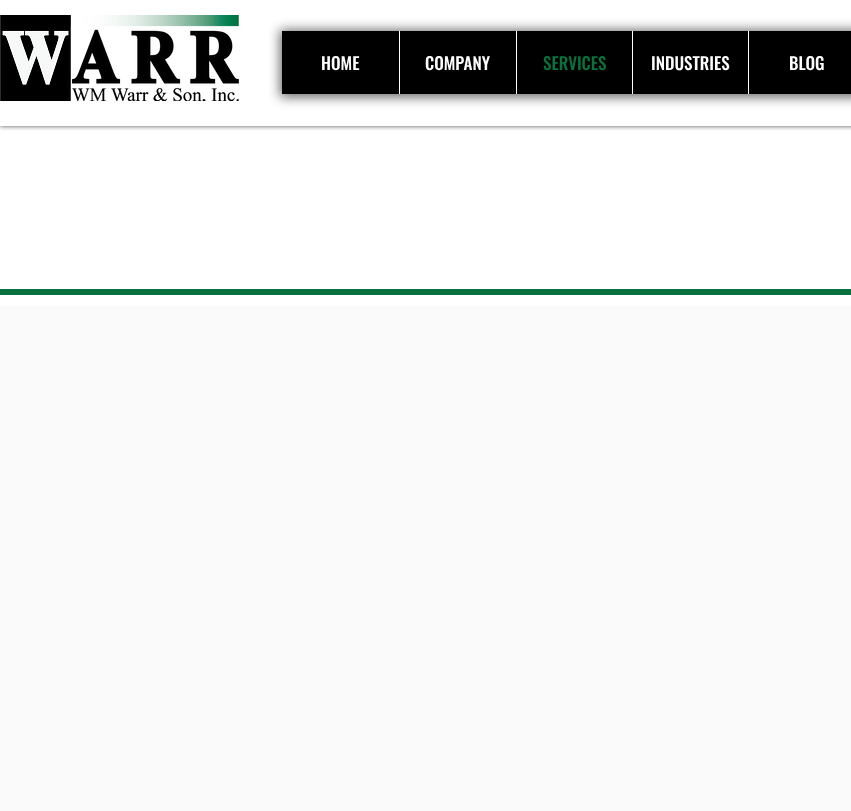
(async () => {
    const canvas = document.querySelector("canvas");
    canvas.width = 851;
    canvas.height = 811;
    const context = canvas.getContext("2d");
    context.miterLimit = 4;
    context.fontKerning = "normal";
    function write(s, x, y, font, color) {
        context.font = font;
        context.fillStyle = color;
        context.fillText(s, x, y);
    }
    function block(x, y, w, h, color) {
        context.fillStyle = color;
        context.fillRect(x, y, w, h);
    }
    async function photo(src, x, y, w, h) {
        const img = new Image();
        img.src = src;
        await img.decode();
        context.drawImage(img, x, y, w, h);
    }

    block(0, 0, 851, 811, "rgb(255, 255, 255)");
    context.save();
    context.beginPath();
    context.rect(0, 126, 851, 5);
    context.clip();
    context.fillStyle = "rgba(0, 0, 0, 0.7)";
    context.filter = "blur(2.5px)";
    context.beginPath();
    context.rect(0, 0, 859, 126);
    context.fill();
    context.filter = "none";
    context.restore();
    await photo("media/1.png", 0, 15, 239, 86);
    context.fillStyle = "rgba(0, 0, 0, 0.6)";
    context.filter = "blur(6px)";
    context.beginPath();
    context.rect(280, 30, 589, 67);
    context.fill();
    context.filter = "none";
    block(282, 31, 569, 63, "rgb(0, 0, 0)");
    write("HOME", 321, 70, "500 17px Oswald", "rgb(255, 255, 255)");
    block(399, 31, 1, 63, "rgb(255, 255, 255)");
    write("COMPANY", 425, 70, "500 17px Oswald", "rgb(255, 255, 255)");
    block(516, 31, 1, 63, "rgb(255, 255, 255)");
    write("SERVICES", 543, 70, "500 17px Oswald", "rgb(9, 113, 61)");
    block(632, 31, 1, 63, "rgb(255, 255, 255)");
    write("INDUSTRIES", 651, 70, "500 17px Oswald", "rgb(255, 255, 255)");
    block(748, 31, 1, 63, "rgb(255, 255, 255)");
    write("BLOG", 789, 70, "500 17px Oswald", "rgb(255, 255, 255)");
    block(0, 289, 851, 6, "rgb(9, 113, 61)");
    block(0, 306, 851, 505, "rgb(250, 250, 250)");
})();
